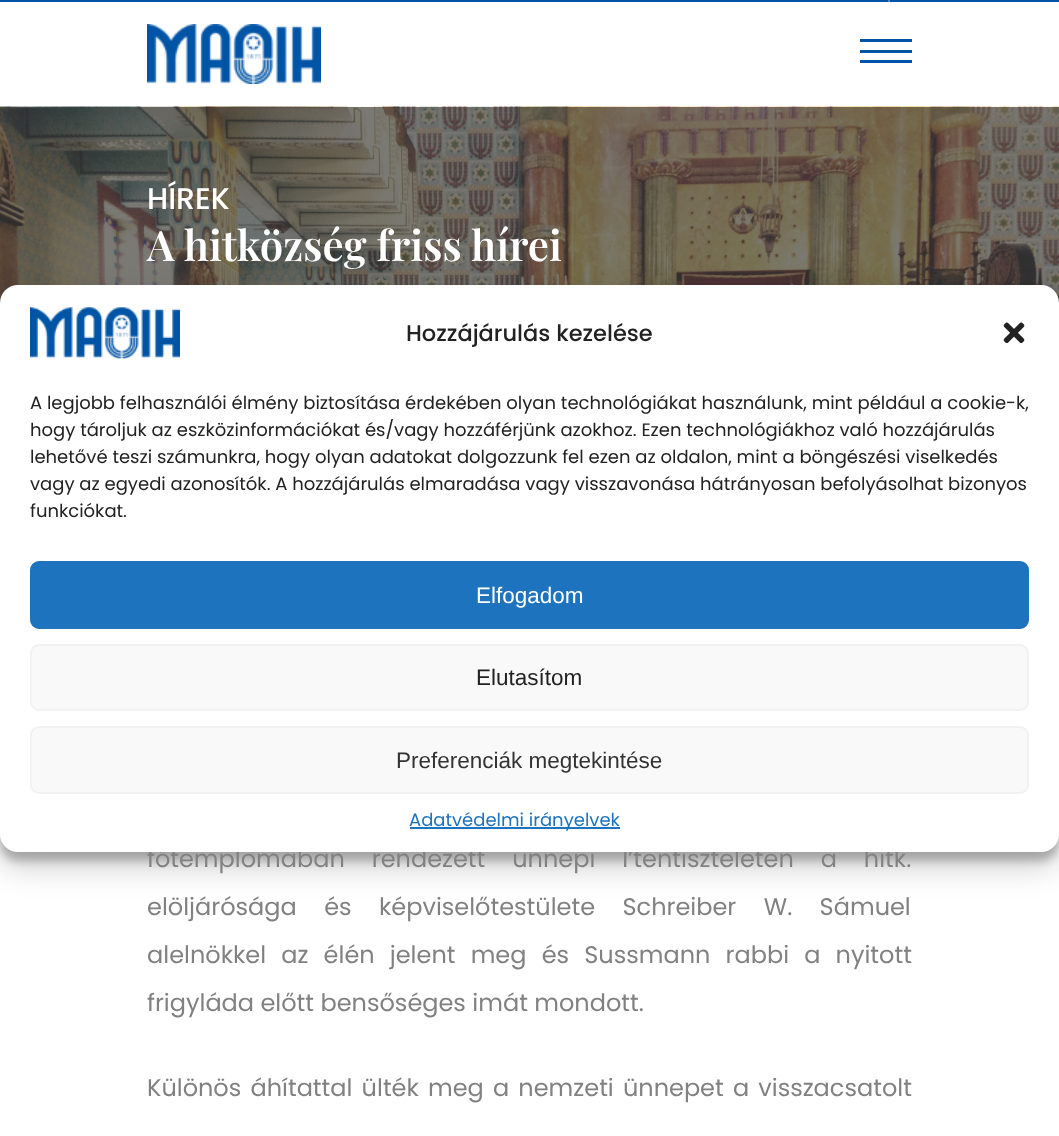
(async () => {
    const canvas = document.querySelector("canvas");
    canvas.width = 1059;
    canvas.height = 1136;
    const context = canvas.getContext("2d");
    context.miterLimit = 4;
    context.fontKerning = "normal";
    function write(s, x, y, font, color) {
        context.font = font;
        context.fillStyle = color;
        context.fillText(s, x, y);
    }
    function block(x, y, w, h, color) {
        context.fillStyle = color;
        context.fillRect(x, y, w, h);
    }
    function card(x, y, w, h, r, color) {
        context.fillStyle = color;
        context.beginPath();
        context.roundRect(x, y, w, h, r);
        context.fill();
    }
    async function photo(src, x, y, w, h) {
        const img = new Image();
        img.src = src;
        await img.decode();
        context.drawImage(img, x, y, w, h);
    }

    block(0, 0, 1059, 1136, "rgb(255, 255, 255)");
    block(0, 0, 1059, 2, "rgb(0, 84, 166)");
    block(888, 0, 2, 2, "rgb(77, 135, 193)");
    await photo("media/1.png", 147, 24, 174, 60);
    block(860, 39, 52, 3, "rgb(0, 84, 166)");
    block(860, 50, 52, 3, "rgb(0, 84, 166)");
    block(860, 60, 52, 3, "rgb(0, 84, 166)");
    await photo("media/2.png", 0, 106, 1059, 197);
    write("HÍREK", 147, 209, "500 30px Poppins", "rgb(255, 255, 255)");
    write("A hitközség friss hírei", 147, 261, "600 42px Playfair Display", "rgb(255, 255, 255)");
    context.fillStyle = "rgba(0, 0, 0, 0.23)";
    context.filter = "blur(4.5px)";
    context.beginPath();
    context.roundRect(0, 294, 1059, 567, 18);
    context.fill();
    context.filter = "none";
    context.fillStyle = "rgba(0, 0, 0, 0.19)";
    context.filter = "blur(15px)";
    context.beginPath();
    context.roundRect(0, 300, 1059, 567, 18);
    context.fill();
    context.filter = "none";
    context.wordSpacing = "20.5px";
    write("főtemplomában rendezett ünnepi I’tentiszteleten a hitk.", 147, 867, "24px Poppins", "rgb(129, 129, 129)");
    card(0, 285, 1059, 567, 18, "rgb(255, 255, 255)");
    await photo("media/3.png", 30, 307, 150, 52);
    context.wordSpacing = "0px";
    write("Hozzájárulás kezelése", 406, 341, "500 22.5px Poppins", "rgb(34, 34, 34)");
    await photo("media/4.png", 1003, 322, 22, 22);
    write("A legjobb felhasználói élmény biztosítása érdekében olyan technológiákat használunk, mint például a cookie-k,", 30, 409, "18px Poppins", "rgb(34, 34, 34)");
    write("hogy tároljuk az eszközinformációkat és/vagy hozzáférjünk azokhoz. Ezen technológiákhoz való hozzájárulás", 30, 436, "18px Poppins", "rgb(34, 34, 34)");
    write("lehetővé teszi számunkra, hogy olyan adatokat dolgozzunk fel ezen az oldalon, mint a böngészési viselkedés", 30, 463, "18px Poppins", "rgb(34, 34, 34)");
    write("vagy az egyedi azonosítók. A hozzájárulás elmaradása vagy visszavonása hátrányosan befolyásolhat bizonyos", 30, 490, "18px Poppins", "rgb(34, 34, 34)");
    write("funkciókat.", 30, 517, "18px Poppins", "rgb(34, 34, 34)");
    context.fillStyle = "rgb(30, 115, 190)";
    context.beginPath();
    context.roundRect(31, 562, 997, 66, 8);
    context.fill();
    context.strokeStyle = "rgb(30, 115, 190)";
    context.lineWidth = 2;
    context.stroke();
    write("Elfogadom", 476, 603, "22.5px Liberation Sans", "rgb(255, 255, 255)");
    context.fillStyle = "rgb(249, 249, 249)";
    context.beginPath();
    context.roundRect(31, 645, 997, 65, 8);
    context.fill();
    context.strokeStyle = "rgb(242, 242, 242)";
    context.stroke();
    write("Elutasítom", 476, 685, "22.5px Liberation Sans", "rgb(34, 34, 34)");
    context.fillStyle = "rgb(249, 249, 249)";
    context.beginPath();
    context.roundRect(31, 727, 997, 66, 8);
    context.fill();
    context.stroke();
    write("Preferenciák megtekintése", 396, 768, "22.5px Liberation Sans", "rgb(51, 51, 51)");
    block(410, 827, 210, 2, "rgb(30, 115, 190)");
    write("Adatvédelmi irányelvek", 409, 826, "18px Poppins", "rgb(30, 115, 190)");
    context.wordSpacing = "21px";
    write("elöljárósága és képviselőtestülete Schreiber W. Sámuel", 147, 915, "24px Poppins", "rgb(129, 129, 129)");
    context.wordSpacing = "8.75px";
    write("alelnökkel az élén jelent meg és Sussmann rabbi a nyitott", 147, 963, "24px Poppins", "rgb(129, 129, 129)");
    context.wordSpacing = "0px";
    write("frigyláda előtt bensőséges imát mondott.", 147, 1011, "24px Poppins", "rgb(129, 129, 129)");
    context.wordSpacing = "2.75px";
    write("Különös áhítattal ülték meg a nemzeti ünnepet a visszacsatolt", 147, 1096, "24px Poppins", "rgb(129, 129, 129)");
})();
